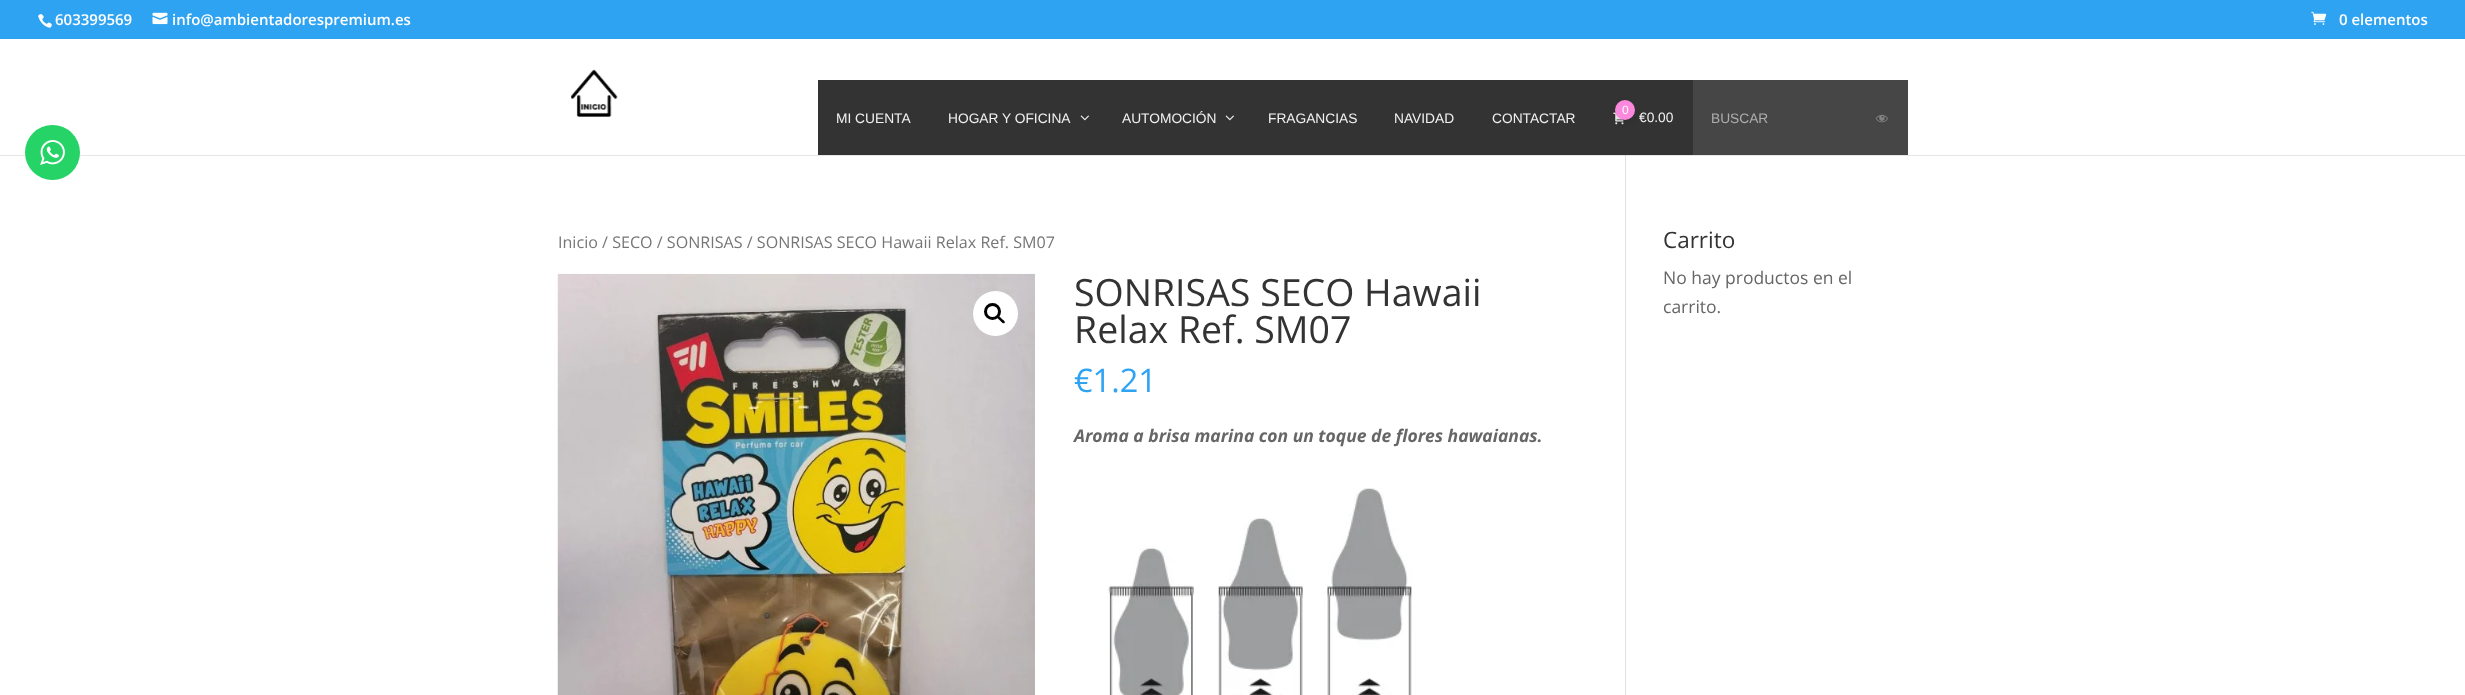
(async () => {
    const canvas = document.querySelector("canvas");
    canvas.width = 2465;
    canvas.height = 695;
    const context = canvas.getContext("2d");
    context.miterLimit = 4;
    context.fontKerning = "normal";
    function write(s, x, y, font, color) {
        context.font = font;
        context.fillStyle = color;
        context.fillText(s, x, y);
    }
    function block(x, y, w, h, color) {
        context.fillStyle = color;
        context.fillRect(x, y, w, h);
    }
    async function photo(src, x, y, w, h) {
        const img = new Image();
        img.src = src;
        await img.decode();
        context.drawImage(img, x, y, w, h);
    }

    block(0, 0, 2465, 695, "rgb(255, 255, 255)");
    block(0, 155, 2465, 1, "rgb(230, 230, 230)");
    context.fillStyle = "rgb(37, 211, 102)";
    context.beginPath();
    context.arc(52.5, 152.5, 27.5, 0, Math.PI * 2);
    context.fill();
    await photo("media/1.png", 40, 140, 25, 25);
    block(0, 0, 2465, 39, "rgb(46, 163, 242)");
    await photo("media/2.png", 38, 14, 14, 14);
    write("603399569", 55, 25, "600 15px Open Sans", "rgb(255, 255, 255)");
    await photo("media/3.png", 152, 12, 16, 13);
    write("info@ambientadorespremium.es", 172, 25, "600 15px Open Sans", "rgb(255, 255, 255)");
    await photo("media/4.png", 2311, 11, 16, 14);
    write("0 elementos", 2339, 25, "600 15px Open Sans", "rgb(255, 255, 255)");
    await photo("media/5.png", 570, 69, 48, 48);
    block(818, 80, 875, 75, "rgb(51, 51, 51)");
    write("MI CUENTA", 836, 123, "13.75px Liberation Sans", "rgb(241, 241, 241)");
    write("HOGAR Y OFICINA", 948, 123, "13.75px Liberation Sans", "rgb(241, 241, 241)");
    await photo("media/6.png", 1080, 115, 9, 6);
    write("AUTOMOCIÓN", 1122, 123, "13.75px Liberation Sans", "rgb(241, 241, 241)");
    await photo("media/6.png", 1225, 115, 9, 6);
    write("FRAGANCIAS", 1268, 123, "13.75px Liberation Sans", "rgb(241, 241, 241)");
    write("NAVIDAD", 1394, 123, "13.75px Liberation Sans", "rgb(241, 241, 241)");
    write("CONTACTAR", 1492, 123, "13.75px Liberation Sans", "rgb(241, 241, 241)");
    await photo("media/7.png", 1613, 112, 11, 13);
    context.fillStyle = "rgba(0, 0, 0, 0.1)";
    context.filter = "blur(3px)";
    context.beginPath();
    context.roundRect(1615, 103, 20, 20, 10);
    context.fill();
    context.filter = "none";
    context.fillStyle = "rgb(251, 136, 221)";
    context.beginPath();
    context.arc(1625, 110, 10, 0, Math.PI * 2);
    context.fill();
    write("0", 1622, 114, "12px Liberation Sans", "rgb(255, 255, 255)");
    write("€0.00", 1639, 122, "13.75px Liberation Sans", "rgb(241, 241, 241)");
    block(1693, 80, 215, 75, "rgb(70, 70, 70)");
    write("BUSCAR", 1711, 123, "13.75px Liberation Sans", "rgb(173, 173, 173)");
    await photo("media/8.png", 1875, 114, 13, 9);
    block(1625, 155, 1, 540, "rgb(226, 226, 226)");
    block(1625, 155, 1, 1, "rgb(203, 203, 203)");
    write("Inicio / SECO / SONRISAS / SONRISAS SECO Hawaii Relax Ref. SM07", 558, 248, "16.1px Open Sans", "rgb(118, 118, 118)");
    await photo("media/9.png", 557, 273, 478, 422);
    context.fillStyle = "rgb(255, 255, 255)";
    context.beginPath();
    context.arc(995.5, 313.5, 22.5, 0, Math.PI * 2);
    context.fill();
    context.beginPath();
    context.arc(992.5, 311.5, 7, 0, Math.PI * 2);
    context.strokeStyle = "rgb(0, 0, 0)";
    context.lineWidth = 3;
    context.stroke();
    context.fillStyle = "rgb(0, 0, 0)";
    context.beginPath();
    context.moveTo(997.5, 316);
    context.bezierCurveTo(998.5, 314.5, 1001, 318, 1001.5, 318.5);
    context.bezierCurveTo(1002.5, 319.5, 1006, 321.5, 1004.5, 323);
    context.bezierCurveTo(1003, 324.5, 1000.5, 321, 1000, 320.5);
    context.bezierCurveTo(999, 319.5, 996, 317.5, 997.5, 316);
    context.closePath();
    context.fill();
    write("SONRISAS SECO Hawaii", 1074, 306, "37.5px Open Sans", "rgb(51, 51, 51)");
    write("Relax Ref. SM07", 1074, 343, "37.5px Open Sans", "rgb(51, 51, 51)");
    write("€1.21", 1074, 392, "32.5px Open Sans", "rgb(46, 163, 242)");
    write("Aroma a brisa marina con un toque de flores hawaianas.", 1074, 442, "italic bold 17.5px Open Sans", "rgb(102, 102, 102)");
    await photo("media/10.png", 1108, 488, 304, 207);
    write("Carrito", 1663, 248, "22.5px Open Sans", "rgb(51, 51, 51)");
    write("No hay productos en el", 1663, 284, "17.5px Open Sans", "rgb(102, 102, 102)");
    write("carrito.", 1663, 313, "17.5px Open Sans", "rgb(102, 102, 102)");
})();
